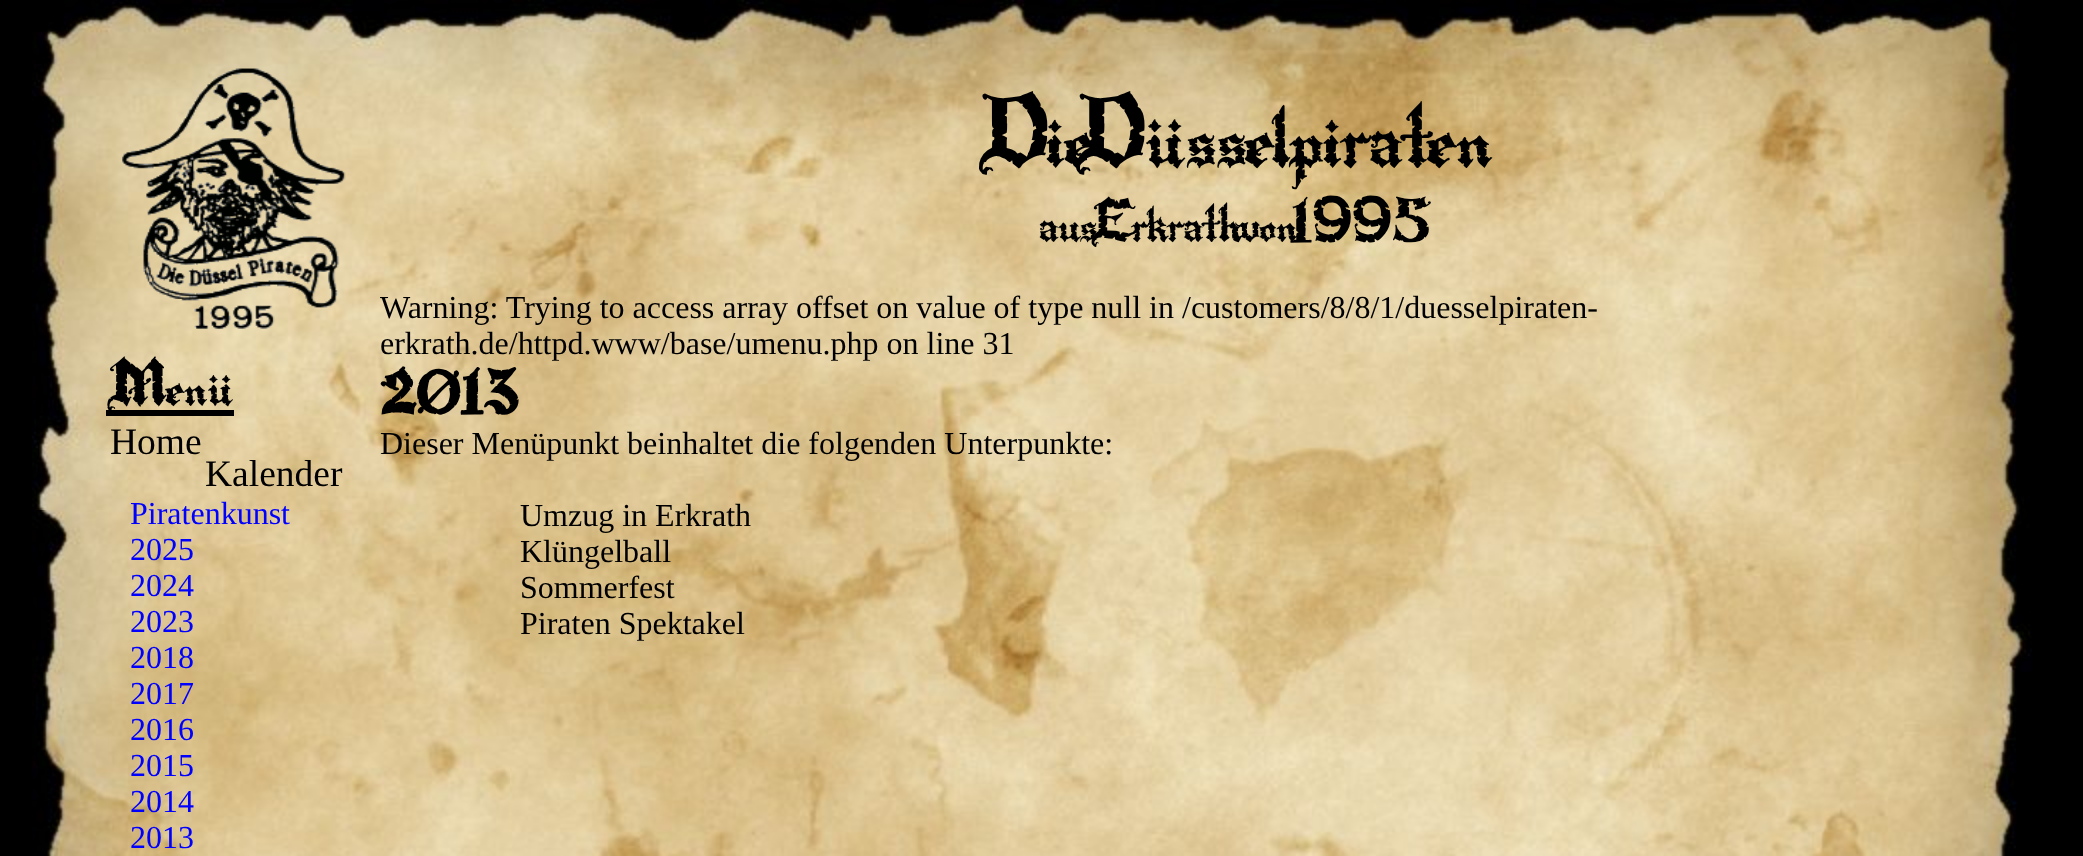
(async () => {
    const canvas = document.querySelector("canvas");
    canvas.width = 2083;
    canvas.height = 856;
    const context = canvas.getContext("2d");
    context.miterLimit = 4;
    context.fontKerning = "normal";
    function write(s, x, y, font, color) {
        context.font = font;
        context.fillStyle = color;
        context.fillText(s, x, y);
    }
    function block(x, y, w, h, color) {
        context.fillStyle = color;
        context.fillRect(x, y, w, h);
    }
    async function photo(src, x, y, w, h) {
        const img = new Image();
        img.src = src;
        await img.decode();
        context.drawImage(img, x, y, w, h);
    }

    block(0, 0, 2083, 856, "rgb(0, 0, 0)");
    await photo("media/1.png", 32, 0, 2000, 856);
    block(2017, 65, 1, 2, "rgb(0, 0, 0)");
    await photo("media/2.png", 380, 0, 1637, 280);
    write("Die Düsselpiraten", 977, 168, "110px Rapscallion", "rgb(0, 0, 0)");
    write("aus Erkrath von 1995", 1039, 242, "64px Rapscallion", "rgb(0, 0, 0)");
    await photo("media/3.png", 122, 68, 224, 261);
    block(106, 410, 128, 6, "rgb(0, 0, 0)");
    write("Menü", 106, 406, "70px Rapscallion", "rgb(0, 0, 0)");
    write("Home", 110, 454, "37.5px Liberation Serif", "rgb(0, 0, 0)");
    write("Kalender", 205, 486, "37.5px Liberation Serif", "rgb(0, 0, 0)");
    write("Piratenkunst", 130, 524, "32px Liberation Serif", "rgb(0, 0, 255)");
    write("2025", 130, 560, "32px Liberation Serif", "rgb(0, 0, 255)");
    write("2024", 130, 596, "32px Liberation Serif", "rgb(0, 0, 255)");
    write("2023", 130, 632, "32px Liberation Serif", "rgb(0, 0, 255)");
    write("2018", 130, 668, "32px Liberation Serif", "rgb(0, 0, 255)");
    write("2017", 130, 704, "32px Liberation Serif", "rgb(0, 0, 255)");
    write("2016", 130, 740, "32px Liberation Serif", "rgb(0, 0, 255)");
    write("2015", 130, 776, "32px Liberation Serif", "rgb(0, 0, 255)");
    write("2014", 130, 812, "32px Liberation Serif", "rgb(0, 0, 255)");
    write("2013", 130, 848, "32px Liberation Serif", "rgb(0, 0, 255)");
    write("Warning: Trying to access array offset on value of type null in /customers/8/8/1/duesselpiraten-", 380, 318, "32px Liberation Serif", "rgb(0, 0, 0)");
    write("erkrath.de/httpd.www/base/umenu.php on line 31", 380, 354, "32px Liberation Serif", "rgb(0, 0, 0)");
    write("2013", 380, 414, "bold 64px Rapscallion", "rgb(0, 0, 0)");
    write("Dieser Menüpunkt beinhaltet die folgenden Unterpunkte:", 380, 454, "32px Liberation Serif", "rgb(0, 0, 0)");
    write("Umzug in Erkrath", 520, 526, "32px Liberation Serif", "rgb(0, 0, 0)");
    write("Klüngelball", 520, 562, "32px Liberation Serif", "rgb(0, 0, 0)");
    write("Sommerfest", 520, 598, "32px Liberation Serif", "rgb(0, 0, 0)");
    write("Piraten Spektakel", 520, 634, "32px Liberation Serif", "rgb(0, 0, 0)");
})();
